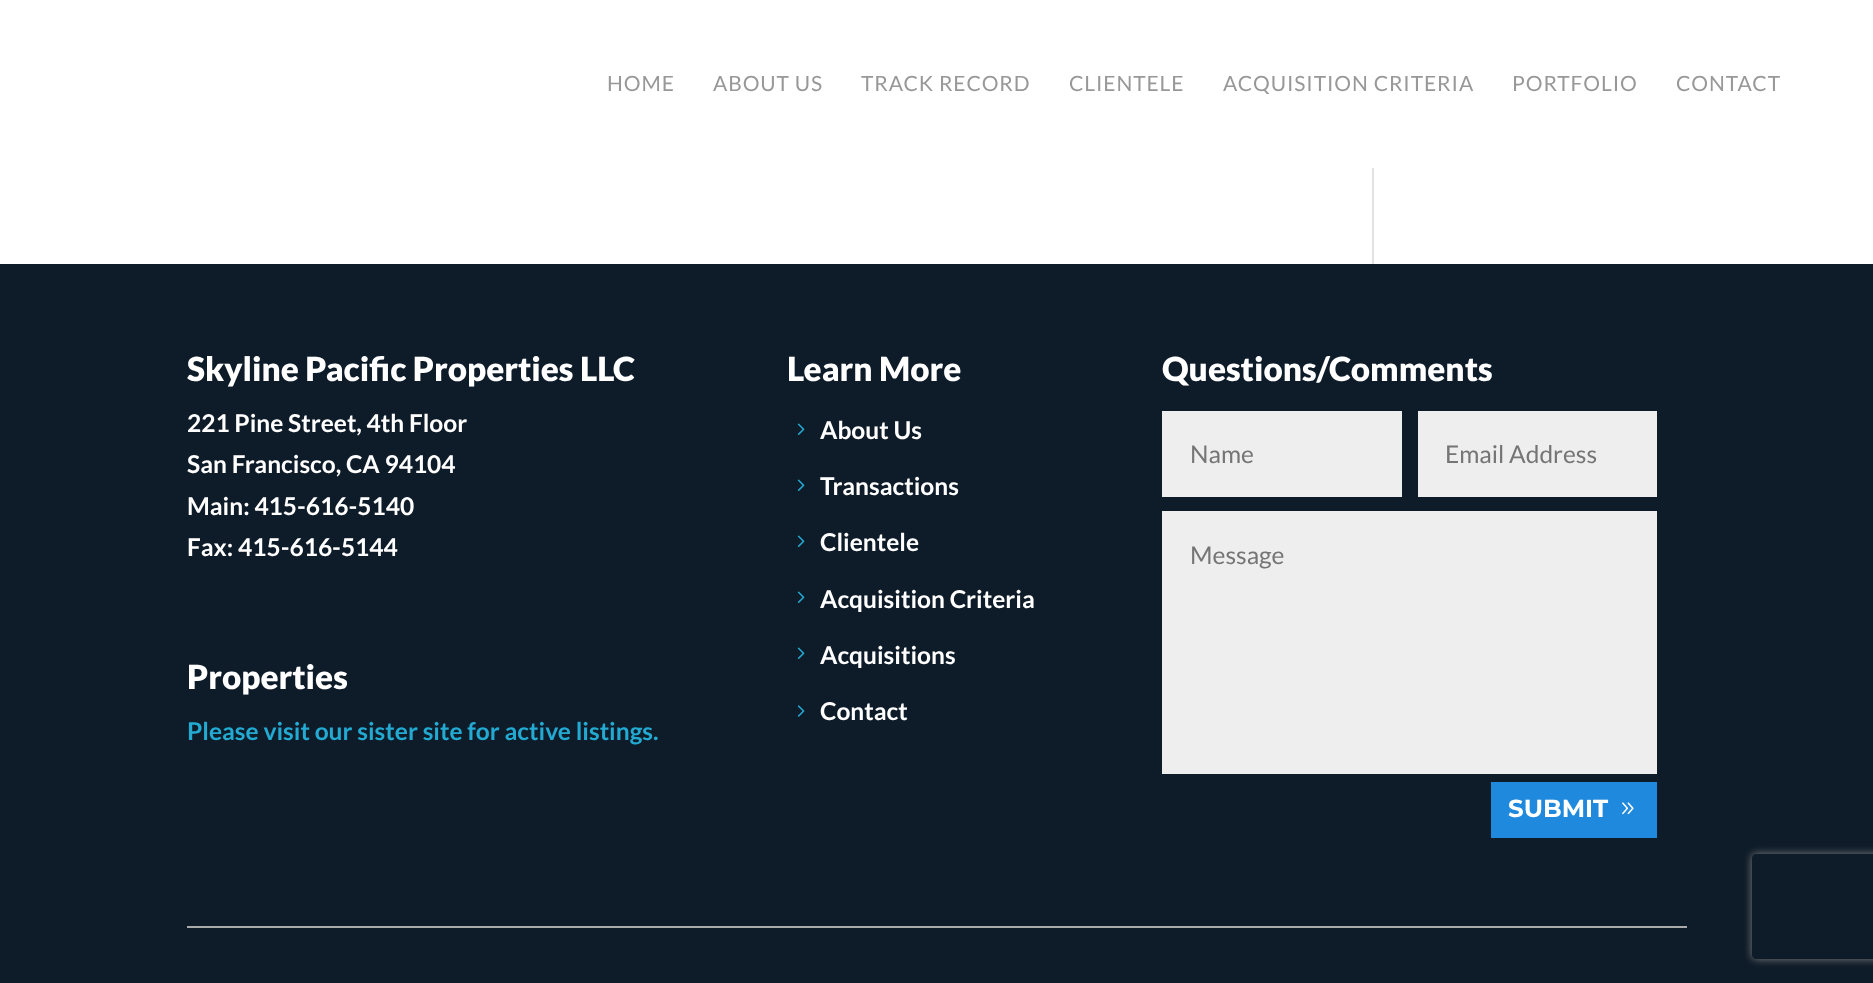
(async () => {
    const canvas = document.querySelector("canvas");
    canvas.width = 1873;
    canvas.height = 983;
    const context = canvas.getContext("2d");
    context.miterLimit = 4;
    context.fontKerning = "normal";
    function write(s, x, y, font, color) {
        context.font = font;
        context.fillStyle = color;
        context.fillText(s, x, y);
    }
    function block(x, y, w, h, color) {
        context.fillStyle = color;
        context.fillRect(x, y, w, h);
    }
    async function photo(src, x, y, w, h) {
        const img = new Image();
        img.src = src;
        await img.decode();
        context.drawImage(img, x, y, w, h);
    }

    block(0, 0, 1873, 983, "rgb(255, 255, 255)");
    context.letterSpacing = "0.9px";
    write("HOME", 607, 91, "21px Lato", "rgb(152, 152, 152)");
    write("ABOUT US", 713, 91, "21px Lato", "rgb(152, 152, 152)");
    write("TRACK RECORD", 861, 91, "21px Lato", "rgb(152, 152, 152)");
    write("CLIENTELE", 1069, 91, "21px Lato", "rgb(152, 152, 152)");
    write("ACQUISITION CRITERIA", 1223, 91, "21px Lato", "rgb(152, 152, 152)");
    write("PORTFOLIO", 1512, 91, "21px Lato", "rgb(152, 152, 152)");
    write("CONTACT", 1676, 91, "21px Lato", "rgb(152, 152, 152)");
    block(1372, 168, 2, 96, "rgb(226, 226, 226)");
    block(0, 264, 1873, 719, "rgb(14, 27, 40)");
    block(187, 926, 1500, 2, "rgb(170, 170, 170)");
    context.letterSpacing = "0px";
    write("Skyline Pacific Properties LLC", 187, 381, "900 33.25px Lato", "rgb(255, 255, 255)");
    write("221 Pine Street, 4th Floor", 187, 432, "bold 24.5px Lato", "rgb(255, 255, 255)");
    write("San Francisco, CA 94104", 187, 473, "bold 24.5px Lato", "rgb(255, 255, 255)");
    write("Main: 415-616-5140", 187, 515, "bold 24.5px Lato", "rgb(255, 255, 255)");
    write("Fax: 415-616-5144", 187, 556, "bold 24.5px Lato", "rgb(255, 255, 255)");
    write("Properties", 187, 689, "900 33.25px Lato", "rgb(255, 255, 255)");
    write("Please visit our sister site for active listings.", 187, 740, "bold 24.5px Lato", "rgb(34, 170, 211)");
    write("Learn More", 787, 381, "900 33.25px Lato", "rgb(255, 255, 255)");
    await photo("media/1.png", 797, 423, 8, 12);
    write("About Us", 820, 439, "bold 24.5px Lato", "rgb(255, 255, 255)");
    await photo("media/1.png", 797, 479, 8, 12);
    write("Transactions", 820, 495, "bold 24.5px Lato", "rgb(255, 255, 255)");
    await photo("media/1.png", 797, 535, 8, 12);
    write("Clientele", 820, 551, "bold 24.5px Lato", "rgb(255, 255, 255)");
    await photo("media/1.png", 797, 591, 8, 12);
    write("Acquisition Criteria", 820, 608, "bold 24.5px Lato", "rgb(255, 255, 255)");
    await photo("media/1.png", 797, 647, 8, 12);
    write("Acquisitions", 820, 664, "bold 24.5px Lato", "rgb(255, 255, 255)");
    await photo("media/2.png", 797, 705, 8, 12);
    write("Contact", 820, 720, "bold 24.5px Lato", "rgb(255, 255, 255)");
    write("Questions/Comments", 1162, 381, "900 33.25px Lato", "rgb(255, 255, 255)");
    block(1162, 411, 240, 86, "rgb(238, 238, 238)");
    write("Name", 1190, 463, "24.5px Lato", "rgb(117, 117, 117)");
    block(1418, 411, 239, 86, "rgb(238, 238, 238)");
    write("Email Address", 1445, 463, "24.5px Lato", "rgb(117, 117, 117)");
    block(1162, 511, 495, 263, "rgb(238, 238, 238)");
    write("Message", 1190, 564, "24.5px Lato", "rgb(117, 117, 117)");
    block(1491, 782, 166, 56, "rgb(31, 137, 221)");
    write("SUBMIT", 1508, 817, "bold 24.5px Montserrat", "rgb(255, 255, 255)");
    await photo("media/3.png", 1622, 802, 12, 13);
    context.save();
    context.beginPath();
    context.moveTo(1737, 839);
    context.lineTo(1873, 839);
    context.lineTo(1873, 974);
    context.lineTo(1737, 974);
    context.closePath();
    context.moveTo(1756, 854);
    context.lineTo(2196, 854);
    context.bezierCurveTo(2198, 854, 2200, 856, 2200, 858);
    context.lineTo(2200, 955);
    context.bezierCurveTo(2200, 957, 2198, 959, 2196, 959);
    context.lineTo(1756, 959);
    context.bezierCurveTo(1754, 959, 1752, 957, 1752, 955);
    context.lineTo(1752, 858);
    context.bezierCurveTo(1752, 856, 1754, 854, 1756, 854);
    context.closePath();
    context.clip("evenodd");
    context.fillStyle = "rgb(128, 128, 128)";
    context.filter = "blur(4.5px)";
    context.beginPath();
    context.roundRect(1752, 854, 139, 105, 4);
    context.fill();
    context.filter = "none";
    context.restore();
})();
